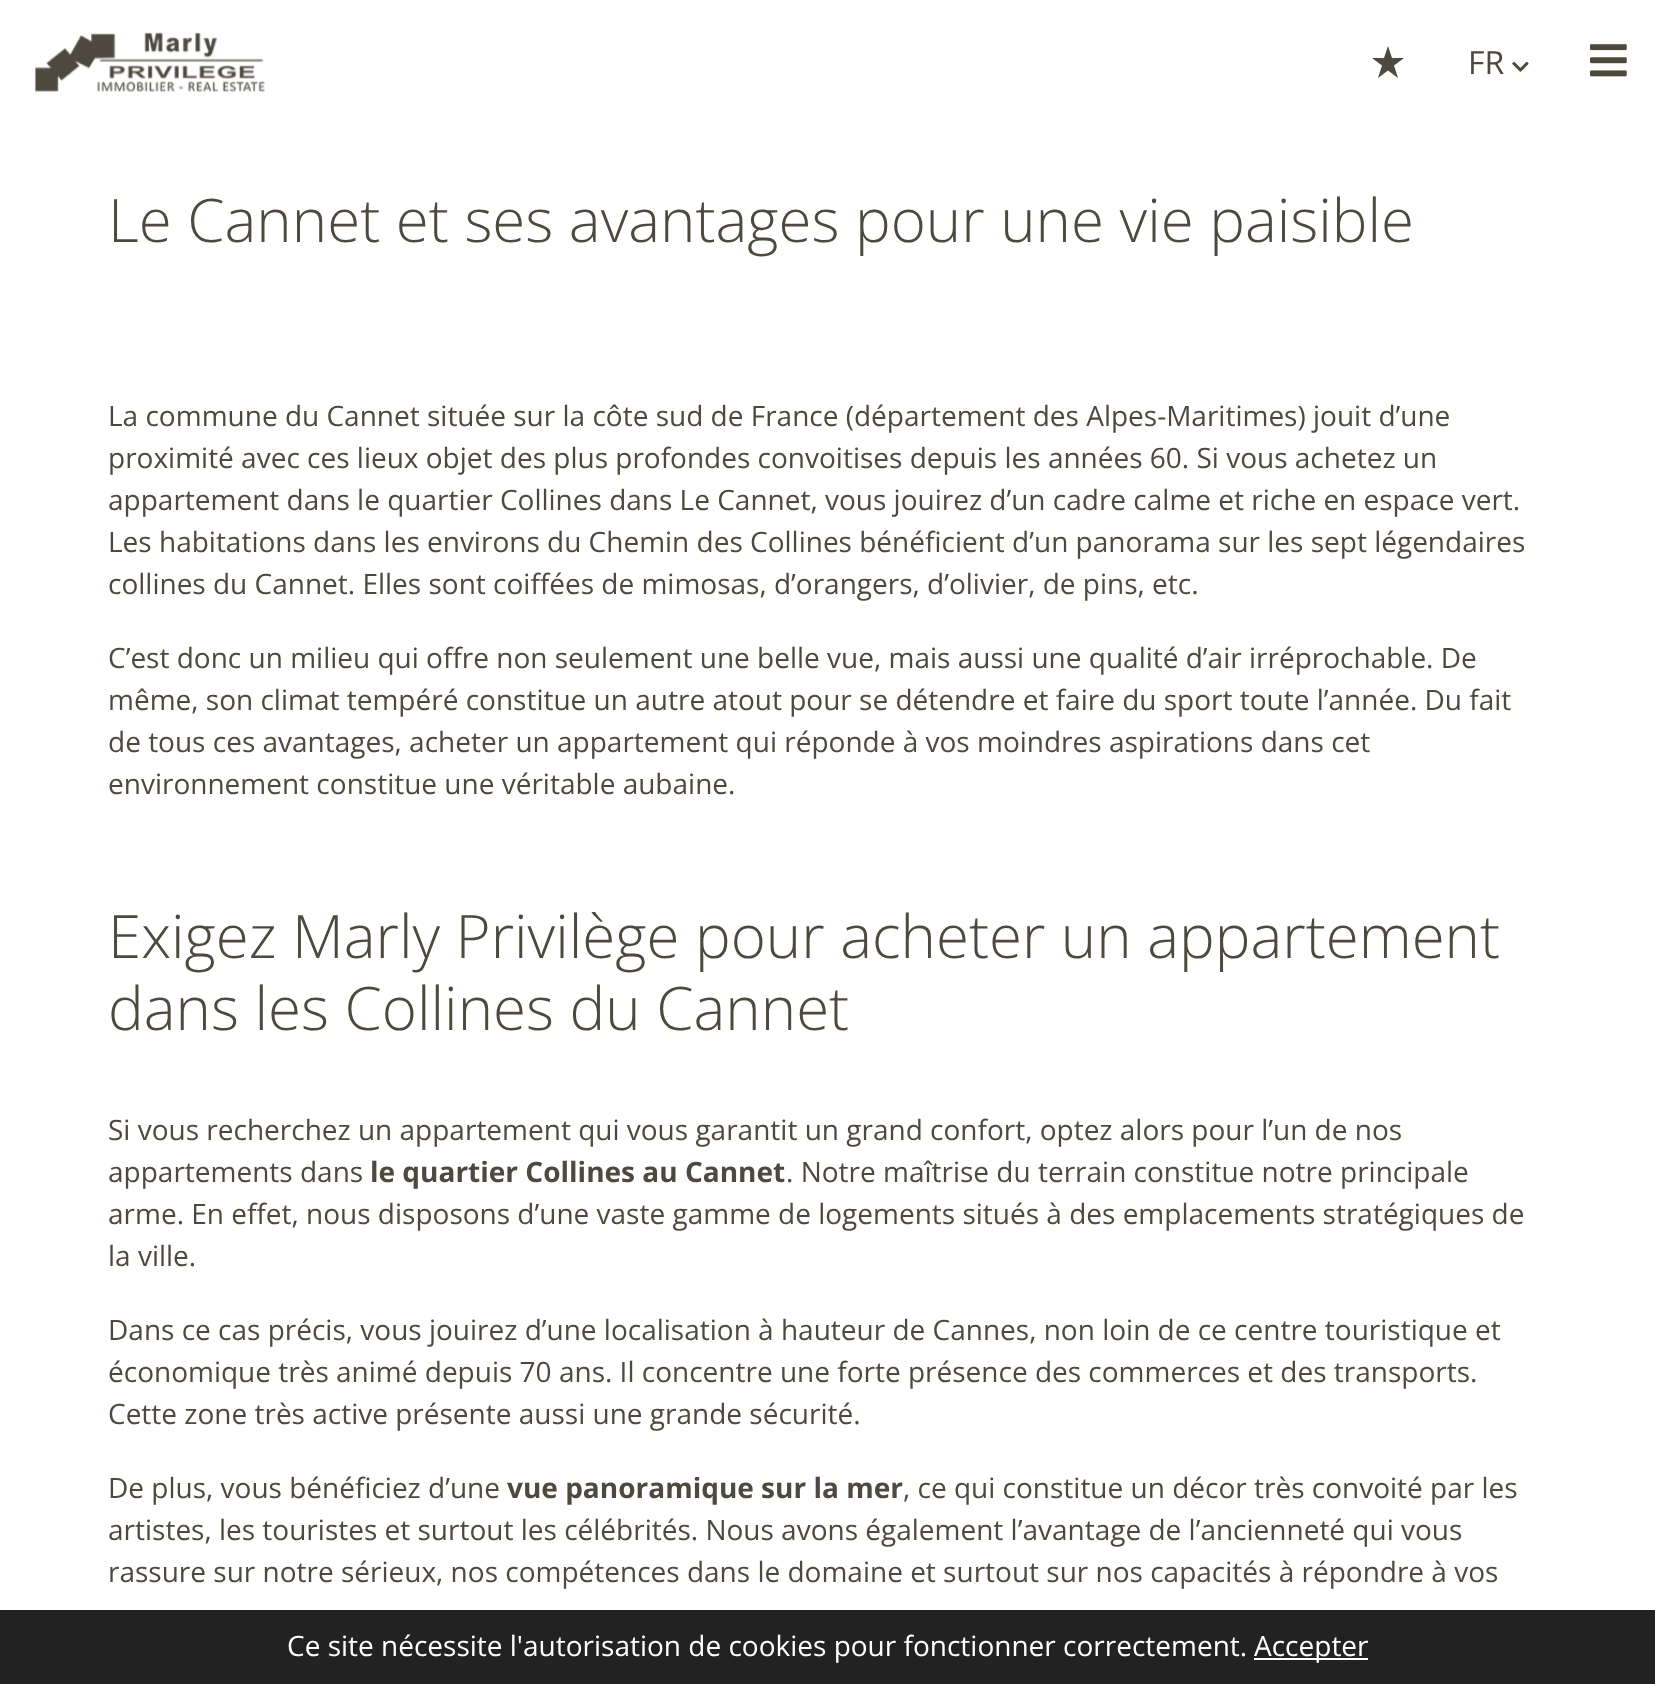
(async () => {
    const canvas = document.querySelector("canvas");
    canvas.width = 1655;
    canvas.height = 1684;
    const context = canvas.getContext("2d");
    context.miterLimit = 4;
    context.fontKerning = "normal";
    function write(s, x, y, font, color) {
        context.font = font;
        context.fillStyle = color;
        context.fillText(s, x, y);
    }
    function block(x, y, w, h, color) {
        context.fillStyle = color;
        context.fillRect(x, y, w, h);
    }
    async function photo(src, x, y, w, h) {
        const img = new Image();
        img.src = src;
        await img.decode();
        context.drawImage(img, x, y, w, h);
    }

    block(0, 0, 1655, 1684, "rgb(255, 255, 255)");
    await photo("media/1.png", 35, 32, 230, 60);
    context.fillStyle = "rgb(77, 73, 62)";
    context.beginPath();
    context.moveTo(1394, 65.5);
    context.lineTo(1404, 58);
    context.lineTo(1392, 58);
    context.lineTo(1388, 46);
    context.lineTo(1384, 58);
    context.lineTo(1372, 58);
    context.lineTo(1382, 65.5);
    context.lineTo(1378, 78);
    context.lineTo(1388, 70.5);
    context.lineTo(1398, 78);
    context.closePath();
    context.fill();
    write("FR", 1468, 74, "32px Open Sans", "rgb(77, 73, 62)");
    await photo("media/2.png", 1512, 61, 17, 11);
    await photo("media/3.png", 1590, 44, 37, 33);
    write("Le Cannet et ses avantages pour une vie paisible", 108, 242, "300 60px Open Sans", "rgb(77, 73, 62)");
    write("La commune du Cannet située sur la côte sud de France (département des Alpes-Maritimes) jouit d’une", 108, 426, "28px Open Sans", "rgb(77, 73, 62)");
    write("proximité avec ces lieux objet des plus profondes convoitises depuis les années 60. Si vous achetez un", 108, 468, "28px Open Sans", "rgb(77, 73, 62)");
    write("appartement dans le quartier Collines dans Le Cannet, vous jouirez d’un cadre calme et riche en espace vert.", 108, 510, "28px Open Sans", "rgb(77, 73, 62)");
    write("Les habitations dans les environs du Chemin des Collines bénéficient d’un panorama sur les sept légendaires", 108, 552, "28px Open Sans", "rgb(77, 73, 62)");
    write("collines du Cannet. Elles sont coiffées de mimosas, d’orangers, d’olivier, de pins, etc.", 108, 594, "28px Open Sans", "rgb(77, 73, 62)");
    write("C’est donc un milieu qui offre non seulement une belle vue, mais aussi une qualité d’air irréprochable. De", 108, 668, "28px Open Sans", "rgb(77, 73, 62)");
    write("même, son climat tempéré constitue un autre atout pour se détendre et faire du sport toute l’année. Du fait", 108, 710, "28px Open Sans", "rgb(77, 73, 62)");
    write("de tous ces avantages, acheter un appartement qui réponde à vos moindres aspirations dans cet", 108, 752, "28px Open Sans", "rgb(77, 73, 62)");
    write("environnement constitue une véritable aubaine.", 108, 794, "28px Open Sans", "rgb(77, 73, 62)");
    write("Exigez Marly Privilège pour acheter un appartement", 108, 958, "300 60px Open Sans", "rgb(77, 73, 62)");
    write("dans les Collines du Cannet", 108, 1030, "300 60px Open Sans", "rgb(77, 73, 62)");
    write("Si vous recherchez un appartement qui vous garantit un grand confort, optez alors pour l’un de nos", 108, 1140, "28px Open Sans", "rgb(77, 73, 62)");
    write("appartements dans", 108, 1182, "28px Open Sans", "rgb(77, 73, 62)");
    write("le quartier Collines au Cannet", 370, 1182, "bold 28px Open Sans", "rgb(77, 73, 62)");
    write(". Notre maîtrise du terrain constitue notre principale", 786, 1182, "28px Open Sans", "rgb(77, 73, 62)");
    write("arme. En effet, nous disposons d’une vaste gamme de logements situés à des emplacements stratégiques de", 108, 1224, "28px Open Sans", "rgb(77, 73, 62)");
    write("la ville.", 108, 1266, "28px Open Sans", "rgb(77, 73, 62)");
    write("Dans ce cas précis, vous jouirez d’une localisation à hauteur de Cannes, non loin de ce centre touristique et", 108, 1340, "28px Open Sans", "rgb(77, 73, 62)");
    write("économique très animé depuis 70 ans. Il concentre une forte présence des commerces et des transports.", 108, 1382, "28px Open Sans", "rgb(77, 73, 62)");
    write("Cette zone très active présente aussi une grande sécurité.", 108, 1424, "28px Open Sans", "rgb(77, 73, 62)");
    write("De plus, vous bénéficiez d’une", 108, 1498, "28px Open Sans", "rgb(77, 73, 62)");
    write("vue panoramique sur la mer", 507, 1498, "bold 28px Open Sans", "rgb(77, 73, 62)");
    write(", ce qui constitue un décor très convoité par les", 903, 1498, "28px Open Sans", "rgb(77, 73, 62)");
    write("artistes, les touristes et surtout les célébrités. Nous avons également l’avantage de l’ancienneté qui vous", 108, 1540, "28px Open Sans", "rgb(77, 73, 62)");
    write("rassure sur notre sérieux, nos compétences dans le domaine et surtout sur nos capacités à répondre à vos", 108, 1582, "28px Open Sans", "rgb(77, 73, 62)");
    block(0, 1610, 1655, 74, "rgb(34, 34, 34)");
    write("Ce site nécessite l'autorisation de cookies pour fonctionner correctement.", 287, 1656, "28px Open Sans", "rgb(255, 255, 255)");
    block(1254, 1658, 114, 2, "rgb(255, 255, 255)");
    write("Accepter", 1254, 1656, "28px Open Sans", "rgb(255, 255, 255)");
})();
